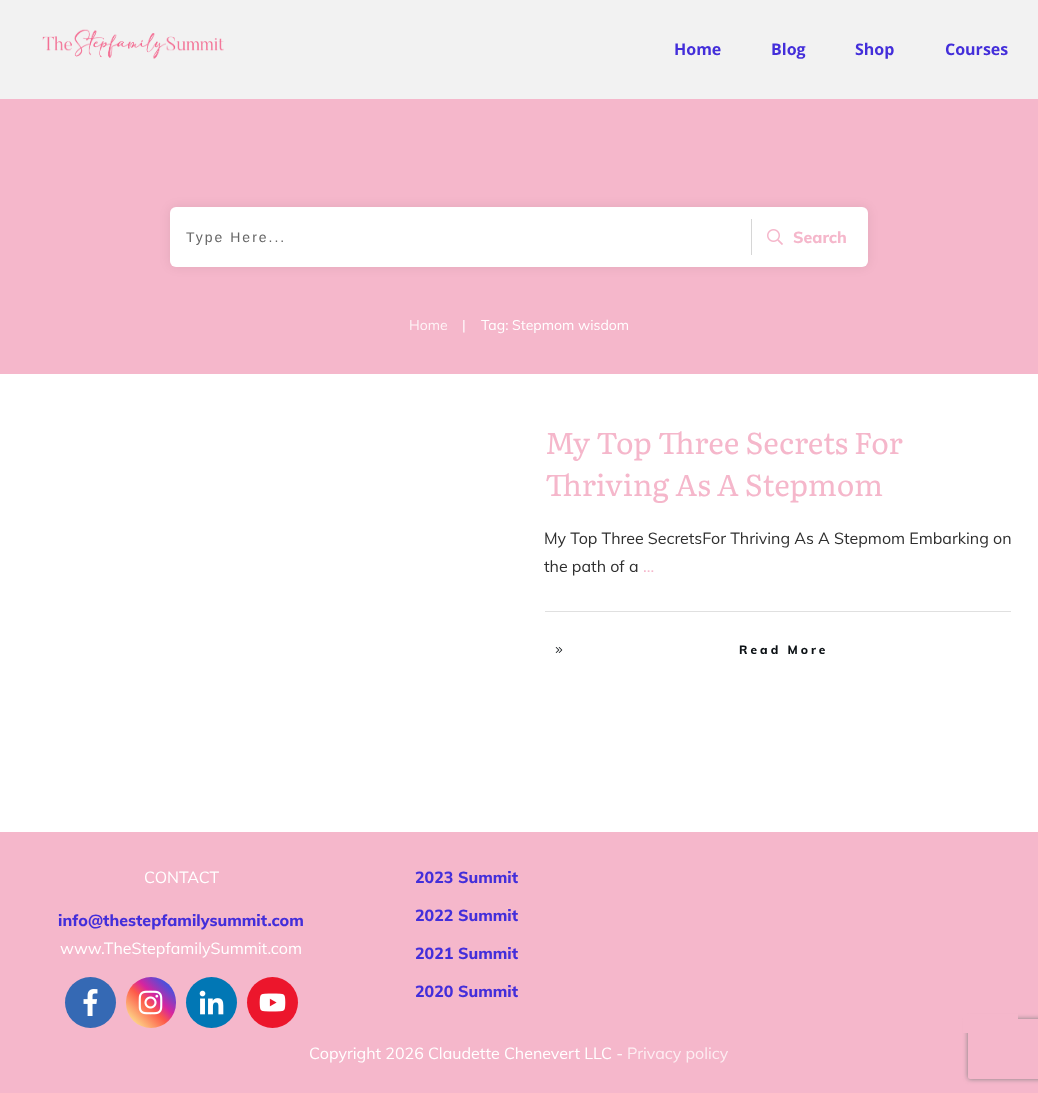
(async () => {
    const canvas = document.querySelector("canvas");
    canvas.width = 1038;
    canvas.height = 1093;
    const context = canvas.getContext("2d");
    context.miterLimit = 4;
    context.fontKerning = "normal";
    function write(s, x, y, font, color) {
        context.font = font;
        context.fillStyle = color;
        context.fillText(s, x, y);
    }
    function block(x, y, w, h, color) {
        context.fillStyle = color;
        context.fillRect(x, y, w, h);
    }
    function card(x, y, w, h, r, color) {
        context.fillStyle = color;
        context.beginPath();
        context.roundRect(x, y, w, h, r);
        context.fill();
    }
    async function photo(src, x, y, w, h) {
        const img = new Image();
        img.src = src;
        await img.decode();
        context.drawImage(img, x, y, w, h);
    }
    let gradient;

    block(0, 0, 1038, 1093, "rgb(255, 255, 255)");
    block(0, 0, 1038, 99, "rgb(242, 242, 242)");
    await photo("media/1.png", 42, 29, 182, 30);
    write("Home", 674, 55, "bold 16px Open Sans", "rgb(67, 46, 218)");
    write("Blog", 771, 55, "bold 16px Open Sans", "rgb(67, 46, 218)");
    write("Shop", 855, 55, "bold 16px Open Sans", "rgb(67, 46, 218)");
    write("Courses", 945, 55, "bold 16px Open Sans", "rgb(67, 46, 218)");
    block(0, 99, 1038, 275, "rgb(245, 183, 203)");
    context.fillStyle = "rgba(0, 0, 0, 0.08)";
    context.filter = "blur(5.5px)";
    context.beginPath();
    context.roundRect(170, 207, 698, 60, 6);
    context.fill();
    context.filter = "none";
    card(170, 207, 698, 60, 6, "rgb(255, 255, 255)");
    context.letterSpacing = "2px";
    write("Type Here...", 186, 242, "14px Liberation Sans", "rgb(102, 102, 102)");
    block(751, 219, 1, 36, "rgb(214, 214, 214)");
    await photo("media/2.png", 767, 229, 16, 16);
    context.letterSpacing = "0px";
    write("Search", 793, 243, "800 16px Muli", "rgb(245, 183, 203)");
    write("Home", 409, 330, "14px Muli", "rgb(254, 244, 247)");
    write("|", 462, 330, "14px Muli", "rgb(255, 255, 255)");
    write("Tag: Stepmom wisdom", 481, 330, "14px Muli", "rgb(255, 255, 255)");
    write("My Top Three Secrets For", 545, 454, "30px Literata", "rgb(245, 183, 203)");
    write("Thriving As A Stepmom", 545, 496, "30px Literata", "rgb(245, 183, 203)");
    write("My Top Three SecretsFor Thriving As A Stepmom Embarking on", 544, 544, "16px Muli", "rgb(47, 47, 47)");
    write("the path of a", 544, 572, "16px Muli", "rgb(47, 47, 47)");
    write("...", 643, 572, "16px Muli", "rgb(245, 183, 203)");
    block(545, 611, 466, 1, "rgb(224, 224, 224)");
    await photo("media/3.png", 555, 647, 8, 6);
    context.letterSpacing = "3px";
    write("Read More", 739, 654, "800 12px Muli", "rgb(12, 17, 21)");
    block(0, 832, 1038, 261, "rgb(245, 183, 203)");
    context.letterSpacing = "0px";
    write("CONTACT", 144, 883, "16px Muli", "rgb(255, 255, 255)");
    write("info@thestepfamilysummit.com", 58, 926, "800 16px Muli", "rgb(67, 46, 218)");
    write("www.TheStepfamilySummit.com", 60, 954, "16px Muli", "rgb(255, 255, 255)");
    context.fillStyle = "rgb(53, 105, 180)";
    context.beginPath();
    context.arc(90.5, 1002.5, 25.5, 0, Math.PI * 2);
    context.fill();
    await photo("media/4.png", 83, 989, 15, 27);
    gradient = context.createLinearGradient(126, 1028, 176, 977);
    gradient.addColorStop(0, "rgb(253, 244, 151)");
    gradient.addColorStop(0.05, "rgb(253, 244, 151)");
    gradient.addColorStop(0.45, "rgb(253, 89, 73)");
    gradient.addColorStop(0.6, "rgb(214, 36, 159)");
    gradient.addColorStop(0.9, "rgb(40, 90, 235)");
    context.fillStyle = gradient;
    context.beginPath();
    context.roundRect(126, 977, 50, 51, 25);
    context.fill();
    await photo("media/5.png", 138, 990, 25, 25);
    context.fillStyle = "rgb(1, 119, 181)";
    context.beginPath();
    context.arc(211.5, 1002.5, 25.5, 0, Math.PI * 2);
    context.fill();
    await photo("media/6.png", 199, 990, 25, 25);
    context.fillStyle = "rgb(236, 22, 44)";
    context.beginPath();
    context.arc(272.5, 1002.5, 25.5, 0, Math.PI * 2);
    context.fill();
    await photo("media/7.png", 259, 993, 27, 19);
    write("2023 Summit", 415, 883, "800 16px Muli", "rgb(67, 46, 218)");
    write("2022 Summit", 415, 921, "800 16px Muli", "rgb(67, 46, 218)");
    write("2021 Summit", 415, 959, "800 16px Muli", "rgb(67, 46, 218)");
    write("2020 Summit", 415, 997, "800 16px Muli", "rgb(67, 46, 218)");
    context.save();
    context.beginPath();
    context.moveTo(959, 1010);
    context.lineTo(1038, 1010);
    context.lineTo(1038, 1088);
    context.lineTo(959, 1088);
    context.closePath();
    context.moveTo(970, 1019);
    context.lineTo(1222, 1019);
    context.bezierCurveTo(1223, 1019, 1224, 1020, 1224, 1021);
    context.lineTo(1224, 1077);
    context.bezierCurveTo(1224, 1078, 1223, 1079, 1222, 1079);
    context.lineTo(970, 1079);
    context.bezierCurveTo(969, 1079, 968, 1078, 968, 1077);
    context.lineTo(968, 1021);
    context.bezierCurveTo(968, 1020, 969, 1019, 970, 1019);
    context.closePath();
    context.clip("evenodd");
    context.fillStyle = "rgb(128, 128, 128)";
    context.filter = "blur(2.5px)";
    context.beginPath();
    context.roundRect(968, 1019, 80, 60, 2);
    context.fill();
    context.filter = "none";
    context.restore();
    block(963, 1014, 55, 19, "rgb(245, 183, 203)");
    write("Copyright 2026 Claudette Chenevert LLC -", 309, 1059, "16px Muli", "rgb(255, 255, 255)");
    write("Privacy policy", 627, 1059, "16px Muli", "rgb(253, 237, 242)");
})();
